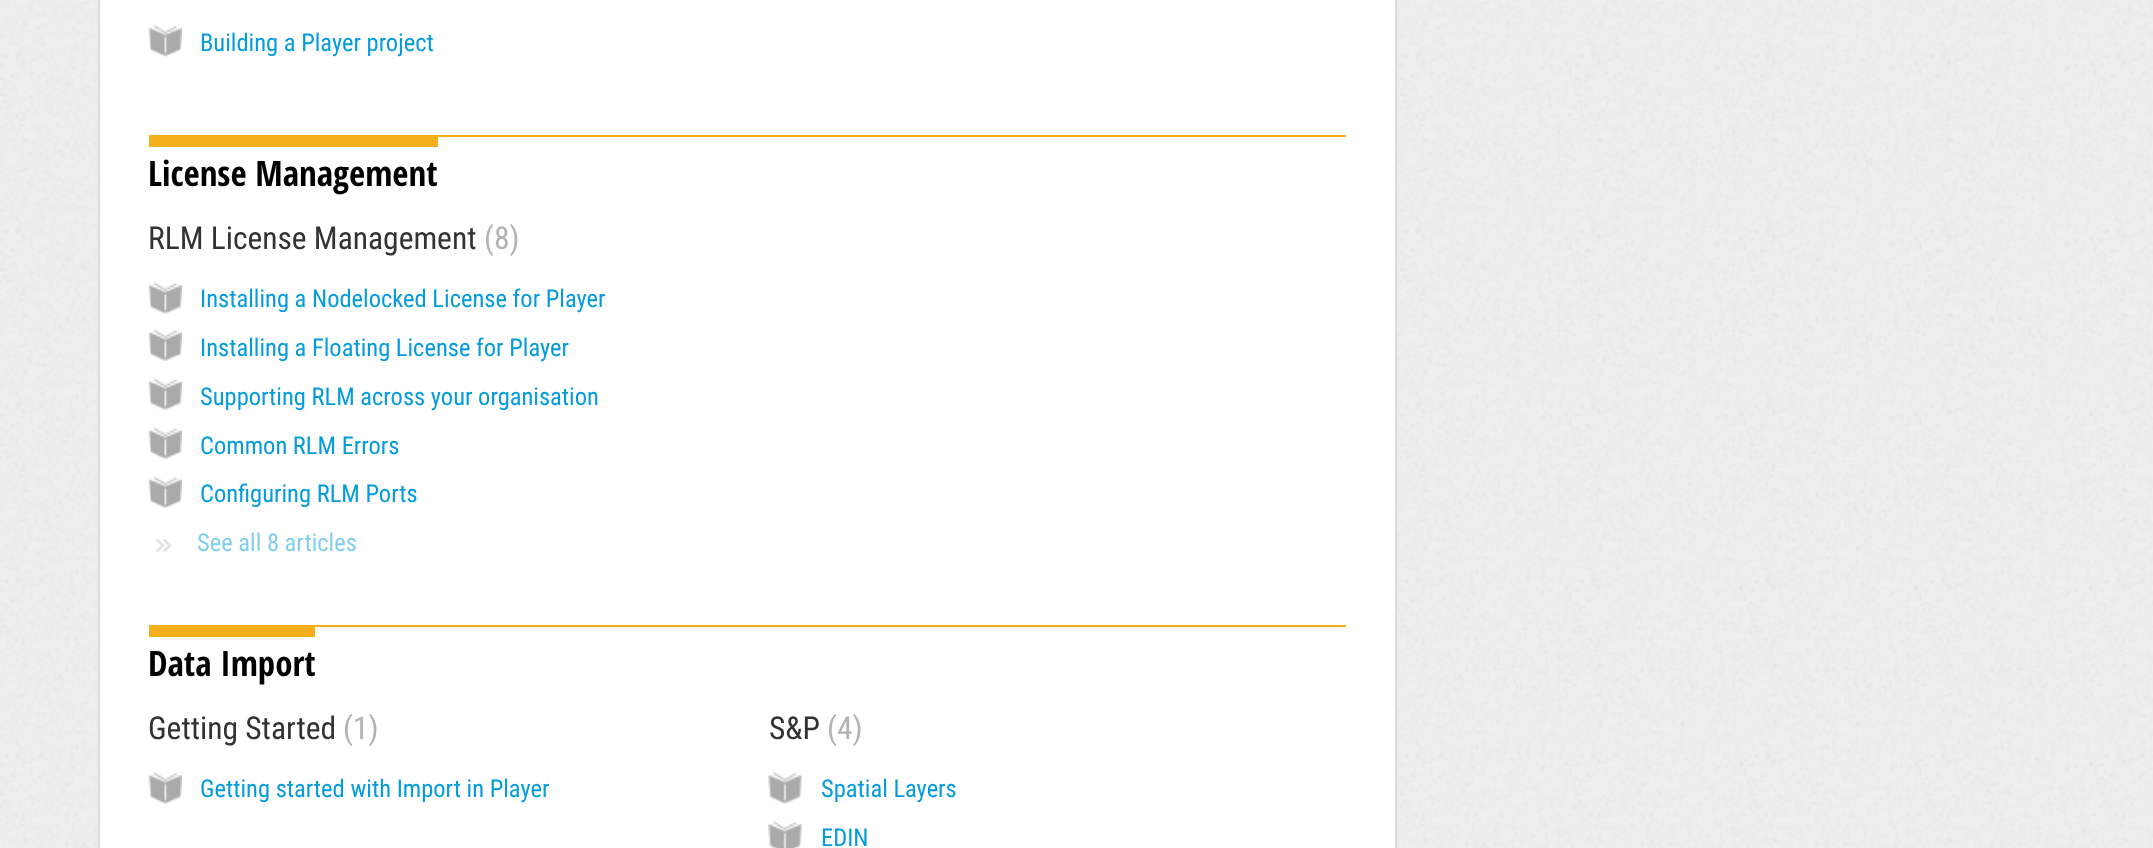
(async () => {
    const canvas = document.querySelector("canvas");
    canvas.width = 2153;
    canvas.height = 848;
    const context = canvas.getContext("2d");
    context.miterLimit = 4;
    context.fontKerning = "normal";
    function write(s, x, y, font, color) {
        context.font = font;
        context.fillStyle = color;
        context.fillText(s, x, y);
    }
    function block(x, y, w, h, color) {
        context.fillStyle = color;
        context.fillRect(x, y, w, h);
    }
    async function photo(src, x, y, w, h) {
        const img = new Image();
        img.src = src;
        await img.decode();
        context.drawImage(img, x, y, w, h);
    }

    block(0, 0, 2153, 848, "rgb(239, 239, 239)");
    await photo("media/1.png", 0, 0, 2153, 848);
    context.fillStyle = "rgb(255, 255, 255)";
    context.beginPath();
    context.rect(99, -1, 1297, 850);
    context.fill();
    context.strokeStyle = "rgb(220, 220, 220)";
    context.lineWidth = 2;
    context.stroke();
    await photo("media/2.png", 148, 24, 34, 33);
    write("Building a Player project", 200, 51, "24.5px Roboto Condensed", "rgb(4, 156, 219)");
    block(149, 135, 1197, 2, "rgb(244, 175, 26)");
    block(149, 137, 289, 10, "rgb(244, 175, 26)");
    write("License Management", 148, 186, "bold 35px Open Sans Condensed", "rgb(0, 0, 0)");
    write("RLM License Management", 148, 249, "31.5px Roboto Condensed", "rgb(51, 51, 51)");
    write("(8)", 484, 249, "31.5px Roboto Condensed", "rgb(179, 179, 179)");
    await photo("media/3.png", 148, 282, 34, 32);
    write("Installing a Nodelocked License for Player", 200, 307, "24.5px Roboto Condensed", "rgb(4, 156, 219)");
    await photo("media/4.png", 148, 329, 34, 32);
    write("Installing a Floating License for Player", 200, 356, "24.5px Roboto Condensed", "rgb(4, 156, 219)");
    await photo("media/4.png", 148, 378, 34, 32);
    write("Supporting RLM across your organisation", 200, 405, "24.5px Roboto Condensed", "rgb(4, 156, 219)");
    await photo("media/4.png", 148, 427, 34, 32);
    write("Common RLM Errors", 200, 454, "24.5px Roboto Condensed", "rgb(4, 156, 219)");
    await photo("media/4.png", 148, 476, 34, 32);
    write("Configuring RLM Ports", 200, 502, "24.5px Roboto Condensed", "rgb(4, 156, 219)");
    await photo("media/5.png", 155, 539, 17, 13);
    write("See all 8 articles", 197, 551, "24.5px Roboto Condensed", "rgb(130, 206, 237)");
    block(149, 625, 1197, 2, "rgb(244, 175, 26)");
    block(149, 627, 166, 10, "rgb(244, 175, 26)");
    write("Data Import", 148, 676, "bold 35px Open Sans Condensed", "rgb(0, 0, 0)");
    write("Getting Started", 148, 739, "31.5px Roboto Condensed", "rgb(51, 51, 51)");
    write("(1)", 343, 739, "31.5px Roboto Condensed", "rgb(179, 179, 179)");
    await photo("media/3.png", 148, 772, 34, 32);
    write("Getting started with Import in Player", 200, 797, "24.5px Roboto Condensed", "rgb(4, 156, 219)");
    write("S&P", 769, 739, "31.5px Roboto Condensed", "rgb(51, 51, 51)");
    write("(4)", 827, 739, "31.5px Roboto Condensed", "rgb(179, 179, 179)");
    await photo("media/6.png", 768, 772, 34, 32);
    write("Spatial Layers", 821, 797, "24.5px Roboto Condensed", "rgb(4, 156, 219)");
    await photo("media/7.png", 768, 821, 34, 27);
    write("EDIN", 821, 846, "24.5px Roboto Condensed", "rgb(4, 156, 219)");
})();
